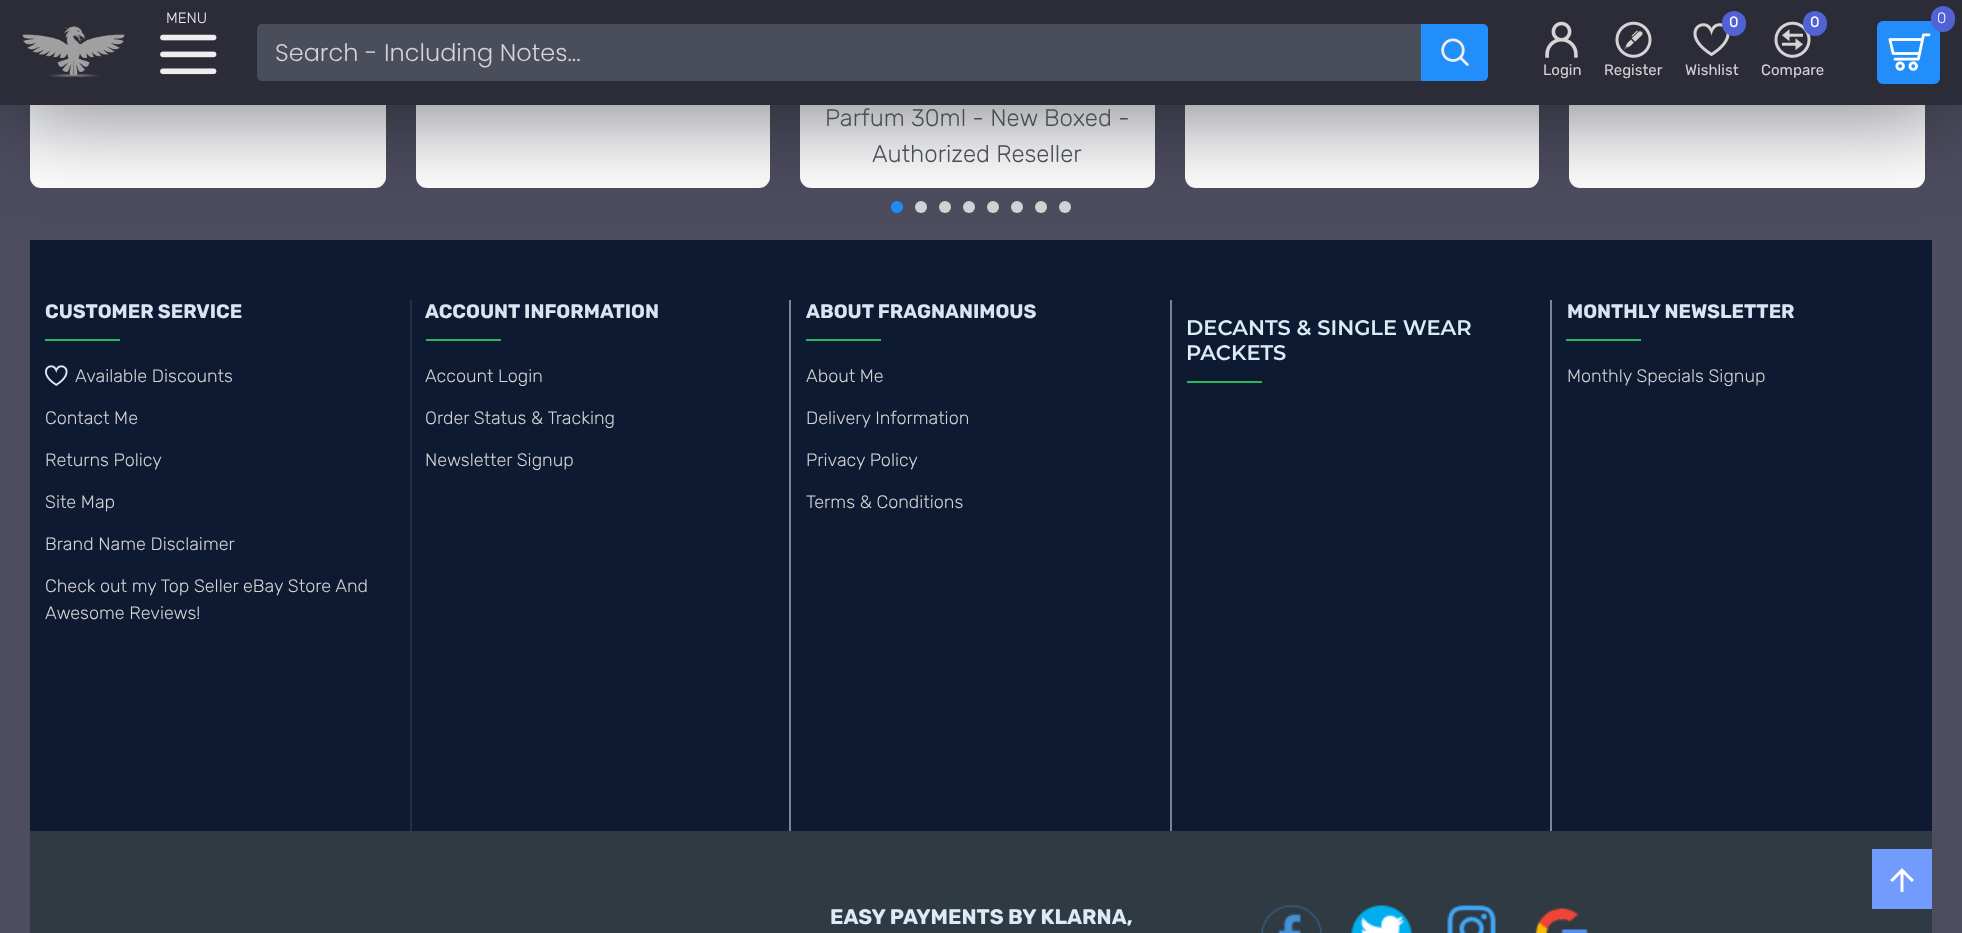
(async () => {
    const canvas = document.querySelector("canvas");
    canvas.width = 1962;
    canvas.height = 933;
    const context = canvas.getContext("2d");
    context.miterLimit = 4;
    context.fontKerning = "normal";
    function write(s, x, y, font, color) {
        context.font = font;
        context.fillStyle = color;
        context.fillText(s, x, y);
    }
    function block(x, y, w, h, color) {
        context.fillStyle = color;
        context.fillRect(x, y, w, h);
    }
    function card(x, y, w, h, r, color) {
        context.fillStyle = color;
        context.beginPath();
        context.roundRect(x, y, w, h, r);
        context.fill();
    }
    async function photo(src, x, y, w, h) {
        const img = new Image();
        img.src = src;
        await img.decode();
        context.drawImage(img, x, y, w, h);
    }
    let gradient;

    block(0, 0, 1962, 933, "rgb(77, 77, 96)");
    gradient = context.createLinearGradient(208, 188, 208, -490);
    gradient.addColorStop(0, "rgb(255, 255, 255)");
    gradient.addColorStop(1, "rgb(222, 230, 249)");
    context.fillStyle = gradient;
    context.beginPath();
    context.roundRect(30, -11, 356, 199, 11);
    context.fill();
    gradient = context.createLinearGradient(593, 188, 593, -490);
    gradient.addColorStop(0, "rgb(255, 255, 255)");
    gradient.addColorStop(1, "rgb(222, 230, 249)");
    context.fillStyle = gradient;
    context.beginPath();
    context.roundRect(416, -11, 354, 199, 11);
    context.fill();
    gradient = context.createLinearGradient(977, 188, 977, -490);
    gradient.addColorStop(0, "rgb(255, 255, 255)");
    gradient.addColorStop(1, "rgb(222, 230, 249)");
    context.fillStyle = gradient;
    context.beginPath();
    context.roundRect(800, -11, 355, 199, 11);
    context.fill();
    gradient = context.createLinearGradient(1362, 188, 1362, -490);
    gradient.addColorStop(0, "rgb(255, 255, 255)");
    gradient.addColorStop(1, "rgb(222, 230, 249)");
    context.fillStyle = gradient;
    context.beginPath();
    context.roundRect(1185, -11, 354, 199, 11);
    context.fill();
    gradient = context.createLinearGradient(1747, 188, 1747, -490);
    gradient.addColorStop(0, "rgb(255, 255, 255)");
    gradient.addColorStop(1, "rgb(222, 230, 249)");
    context.fillStyle = gradient;
    context.beginPath();
    context.roundRect(1569, -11, 356, 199, 11);
    context.fill();
    context.fillStyle = "rgb(34, 142, 251)";
    context.beginPath();
    context.arc(897, 207, 6, 0, Math.PI * 2);
    context.fill();
    context.fillStyle = "rgb(212, 212, 212)";
    context.beginPath();
    context.arc(921, 207, 6, 0, Math.PI * 2);
    context.fill();
    context.beginPath();
    context.arc(945, 207, 6, 0, Math.PI * 2);
    context.fill();
    context.beginPath();
    context.arc(969, 207, 6, 0, Math.PI * 2);
    context.fill();
    context.beginPath();
    context.arc(993, 207, 6, 0, Math.PI * 2);
    context.fill();
    context.beginPath();
    context.arc(1017, 207, 6, 0, Math.PI * 2);
    context.fill();
    context.beginPath();
    context.arc(1041, 207, 6, 0, Math.PI * 2);
    context.fill();
    context.beginPath();
    context.arc(1065, 207, 6, 0, Math.PI * 2);
    context.fill();
    block(30, 240, 1902, 591, "rgb(14, 26, 50)");
    context.fillStyle = "rgba(0, 0, 0, 0.5)";
    context.filter = "blur(49px)";
    context.beginPath();
    context.rect(8, -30, 1947, 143);
    context.fill();
    context.filter = "none";
    block(0, 0, 1962, 105, "rgb(44, 44, 57)");
    await photo("media/1.png", 22, 26, 103, 52);
    write("MENU", 166, 23, "300 15px 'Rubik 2'", "rgb(238, 238, 238)");
    await photo("media/2.png", 160, 34, 57, 41);
    context.fillStyle = "rgb(74, 78, 90)";
    context.beginPath();
    context.roundRect(257, 24, 1164, 57, [5, 0, 0, 5]);
    context.fill();
    write("Search - Including Notes...", 275, 61, "300 24px Poppins", "rgb(212, 212, 212)");
    context.fillStyle = "rgb(34, 142, 251)";
    context.beginPath();
    context.roundRect(1421, 24, 67, 57, [0, 5, 5, 0]);
    context.fill();
    await photo("media/3.png", 1441, 38, 28, 28);
    await photo("media/4.png", 1545, 21, 33, 37);
    write("Login", 1543, 75, "300 15px 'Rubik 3'", "rgb(212, 212, 212)");
    await photo("media/5.png", 1615, 21, 37, 37);
    write("Register", 1604, 75, "300 15px 'Rubik 3'", "rgb(212, 212, 212)");
    await photo("media/6.png", 1693, 23, 37, 34);
    card(1722, 11, 24, 25, 12, "rgb(81, 98, 213)");
    write("0", 1729, 27, "300 15px 'Rubik 3'", "rgb(255, 255, 255)");
    write("Wishlist", 1685, 75, "300 15px 'Rubik 3'", "rgb(212, 212, 212)");
    await photo("media/7.png", 1774, 21, 37, 37);
    card(1803, 11, 24, 25, 12, "rgb(81, 98, 213)");
    write("0", 1810, 27, "300 15px 'Rubik 3'", "rgb(255, 255, 255)");
    write("Compare", 1761, 75, "300 15px 'Rubik 3'", "rgb(212, 212, 212)");
    card(1877, 21, 63, 63, 6, "rgb(34, 142, 251)");
    card(1931, 6, 24, 26, 12, "rgb(81, 98, 213)");
    write("0", 1937, 23, "300 15px 'Rubik 2'", "rgb(255, 255, 255)");
    await photo("media/8.png", 1888, 33, 43, 38);
    write("Parfum 30ml - New Boxed -", 825, 126, "300 24px 'Rubik 2'", "rgb(74, 78, 90)");
    write("Authorized Reseller", 872, 162, "300 24px 'Rubik 2'", "rgb(74, 78, 90)");
    block(410, 300, 2, 531, "rgb(34, 47, 70)");
    write("CUSTOMER SERVICE", 45, 318, "300 19.5px Rubik", "rgb(219, 228, 243)");
    block(45, 339, 75, 2, "rgb(42, 184, 88)");
    await photo("media/9.png", 45, 365, 23, 21);
    write("Available Discounts", 75, 382, "300 18px 'Rubik 2'", "rgb(212, 212, 212)");
    write("Contact Me", 45, 424, "300 18px 'Rubik 2'", "rgb(212, 212, 212)");
    write("Returns Policy", 45, 466, "300 18px 'Rubik 2'", "rgb(212, 212, 212)");
    write("Site Map", 45, 508, "300 18px 'Rubik 2'", "rgb(212, 212, 212)");
    write("Brand Name Disclaimer", 45, 550, "300 18px 'Rubik 2'", "rgb(212, 212, 212)");
    write("Check out my Top Seller eBay Store And", 45, 592, "300 18px 'Rubik 2'", "rgb(212, 212, 212)");
    write("Awesome Reviews!", 45, 619, "300 18px 'Rubik 2'", "rgb(212, 212, 212)");
    block(789, 300, 2, 531, "rgb(118, 134, 150)");
    write("ACCOUNT INFORMATION", 425, 318, "300 19.5px Rubik", "rgb(219, 228, 243)");
    block(426, 339, 75, 2, "rgb(42, 184, 88)");
    write("Account Login", 425, 382, "300 18px 'Rubik 2'", "rgb(212, 212, 212)");
    write("Order Status & Tracking", 425, 424, "300 18px 'Rubik 2'", "rgb(212, 212, 212)");
    write("Newsletter Signup", 425, 466, "300 18px 'Rubik 2'", "rgb(212, 212, 212)");
    block(1170, 300, 2, 531, "rgb(116, 132, 148)");
    write("ABOUT FRAGNANIMOUS", 806, 318, "300 19.5px Rubik", "rgb(219, 228, 243)");
    block(806, 339, 75, 2, "rgb(42, 184, 88)");
    write("About Me", 806, 382, "300 18px 'Rubik 2'", "rgb(212, 212, 212)");
    write("Delivery Information", 806, 424, "300 18px 'Rubik 2'", "rgb(212, 212, 212)");
    write("Privacy Policy", 806, 466, "300 18px 'Rubik 2'", "rgb(212, 212, 212)");
    write("Terms & Conditions", 806, 508, "300 18px 'Rubik 2'", "rgb(212, 212, 212)");
    block(1550, 300, 2, 531, "rgb(118, 134, 150)");
    write("DECANTS & SINGLE WEAR", 1186, 335, "100 21px Montserrat", "rgb(218, 237, 246)");
    write("PACKETS", 1186, 360, "100 21px Montserrat", "rgb(218, 237, 246)");
    block(1187, 381, 75, 2, "rgb(42, 184, 88)");
    write("MONTHLY NEWSLETTER", 1567, 318, "300 19.5px Rubik", "rgb(219, 228, 243)");
    block(1566, 339, 75, 2, "rgb(42, 184, 88)");
    write("Monthly Specials Signup", 1567, 382, "300 18px 'Rubik 2'", "rgb(212, 212, 212)");
    block(30, 831, 1902, 102, "rgb(48, 58, 67)");
    write("EASY PAYMENTS BY KLARNA,", 830, 924, "300 21px Rubik", "rgb(218, 237, 246)");
    await photo("media/10.png", 1261, 905, 61, 28);
    await photo("media/11.png", 1351, 905, 61, 28);
    await photo("media/12.png", 1447, 905, 49, 28);
    await photo("media/13.png", 1535, 908, 54, 25);
    block(1872, 849, 60, 60, "rgb(113, 155, 252)");
    await photo("media/14.png", 1890, 868, 24, 24);
})();
